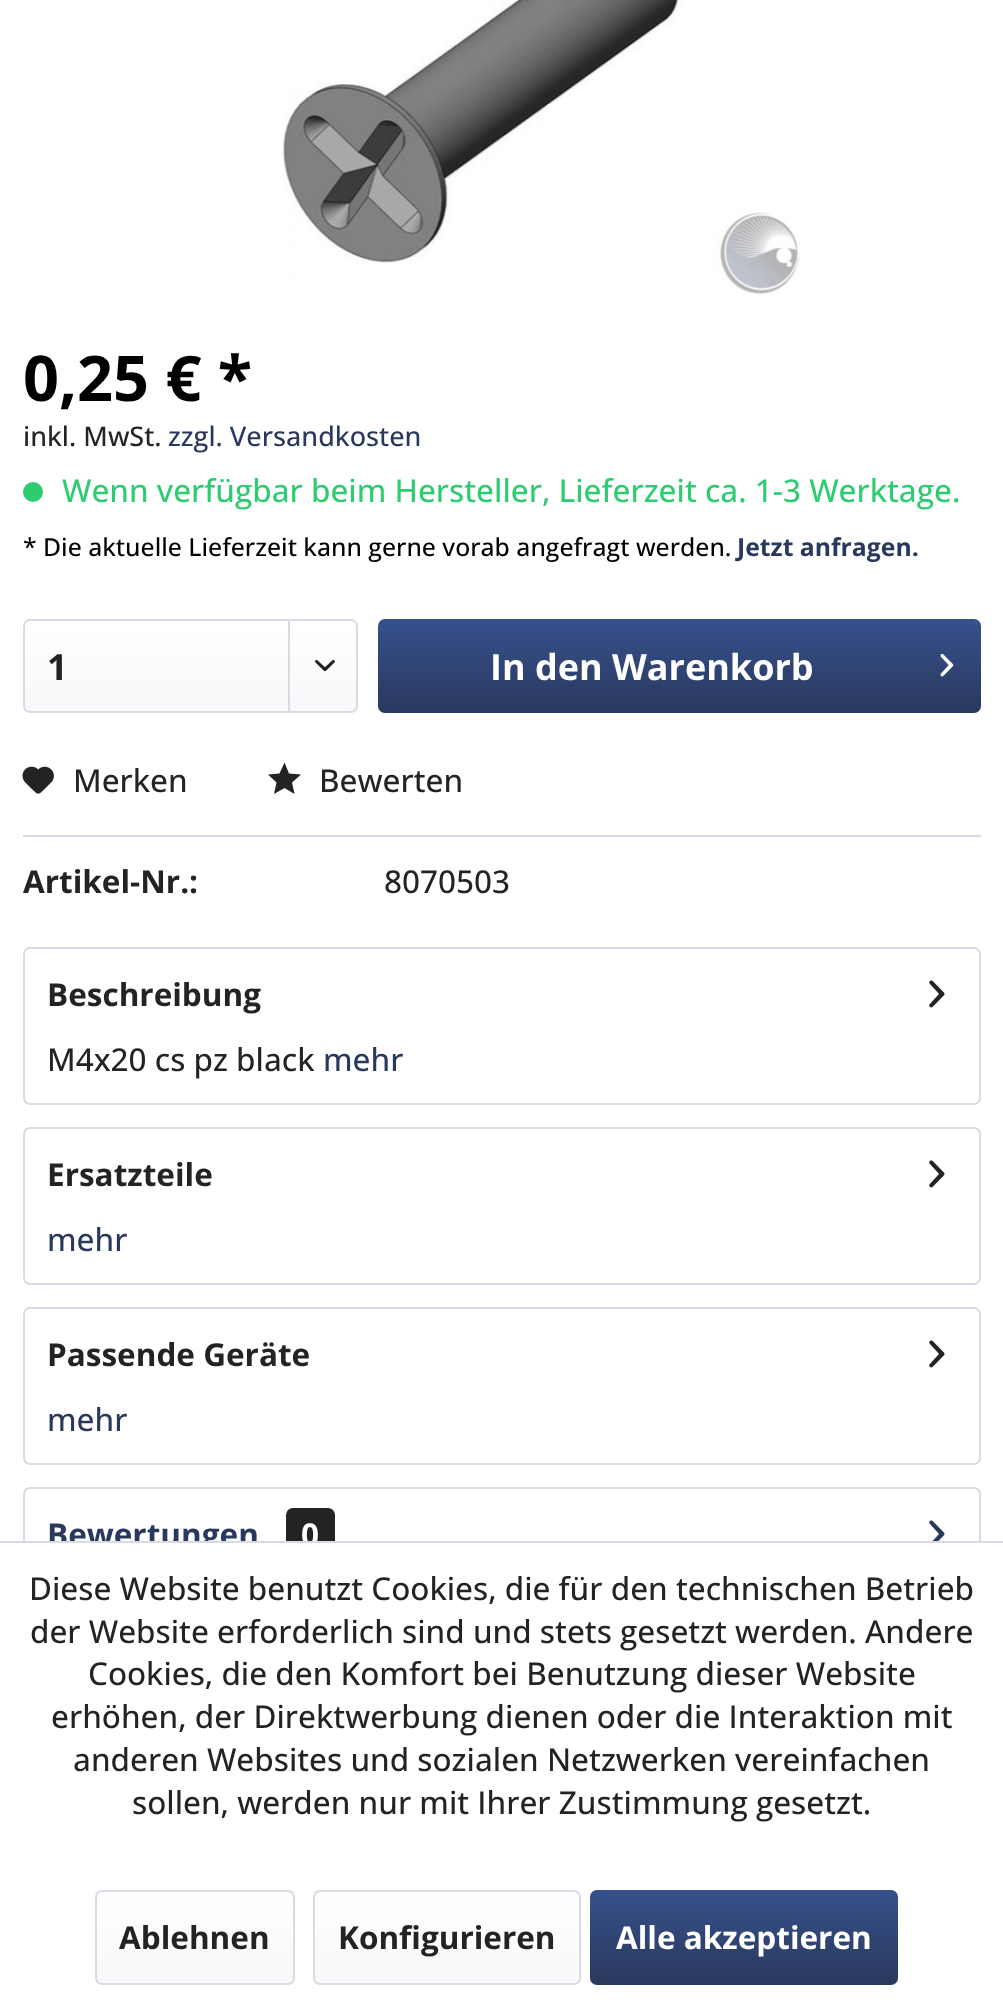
(async () => {
    const canvas = document.querySelector("canvas");
    canvas.width = 1003;
    canvas.height = 2007;
    const context = canvas.getContext("2d");
    context.miterLimit = 4;
    context.fontKerning = "normal";
    function write(s, x, y, font, color) {
        context.font = font;
        context.fillStyle = color;
        context.fillText(s, x, y);
    }
    function block(x, y, w, h, color) {
        context.fillStyle = color;
        context.fillRect(x, y, w, h);
    }
    function card(x, y, w, h, r, color) {
        context.fillStyle = color;
        context.beginPath();
        context.roundRect(x, y, w, h, r);
        context.fill();
    }
    async function photo(src, x, y, w, h) {
        const img = new Image();
        img.src = src;
        await img.decode();
        context.drawImage(img, x, y, w, h);
    }
    let gradient;

    block(0, 0, 1003, 2007, "rgb(255, 255, 255)");
    await photo("media/1.png", 282, 0, 518, 295);
    write("0,25 € *", 23, 401, "bold 63px Open Sans", "rgb(0, 0, 0)");
    write("inkl. MwSt.", 23, 446, "500 27px Open Sans", "rgb(35, 35, 35)");
    write("zzgl. Versandkosten", 168, 446, "500 27px Open Sans", "rgb(41, 57, 93)");
    context.fillStyle = "rgb(46, 204, 113)";
    context.beginPath();
    context.arc(33, 492, 10, 0, Math.PI * 2);
    context.fill();
    write("Wenn verfügbar beim Hersteller, Lieferzeit ca. 1-3 Werktage.", 62, 502, "500 31.5px Open Sans", "rgb(46, 204, 113)");
    write("* Die aktuelle Lieferzeit kann gerne vorab angefragt werden.", 23, 556, "500 24.75px Open Sans", "rgb(0, 0, 0)");
    write("Jetzt anfragen.", 737, 556, "bold 24.75px Open Sans", "rgb(41, 57, 93)");
    gradient = context.createLinearGradient(190, 621, 190, 711);
    gradient.addColorStop(0, "rgb(255, 255, 255)");
    gradient.addColorStop(1, "rgb(248, 248, 250)");
    context.fillStyle = gradient;
    context.beginPath();
    context.roundRect(25, 621, 331, 90, 5);
    context.fill();
    context.beginPath();
    context.roundRect(24, 620, 333, 92, 6);
    context.strokeStyle = "rgb(218, 218, 229)";
    context.lineWidth = 2;
    context.stroke();
    write("1", 47, 680, "bold 36px Open Sans", "rgb(35, 35, 35)");
    block(288, 621, 2, 90, "rgb(218, 218, 229)");
    await photo("media/2.png", 315, 660, 20, 12);
    gradient = context.createLinearGradient(680, 619, 680, 713);
    gradient.addColorStop(0, "rgb(55, 81, 140)");
    gradient.addColorStop(1, "rgb(41, 57, 93)");
    context.fillStyle = gradient;
    context.beginPath();
    context.roundRect(378, 619, 603, 94, 7);
    context.fill();
    write("In den Warenkorb", 490, 680, "bold 36px Open Sans", "rgb(255, 255, 255)");
    await photo("media/3.png", 940, 653, 14, 24);
    block(23, 835, 958, 2, "rgb(218, 218, 229)");
    await photo("media/4.png", 22, 766, 32, 28);
    write("Merken", 73, 792, "500 31.5px Open Sans", "rgb(35, 35, 35)");
    write("Bewerten", 319, 792, "500 31.5px Open Sans", "rgb(35, 35, 35)");
    context.beginPath();
    context.moveTo(284.5, 762.5);
    context.lineTo(279.5, 773.5);
    context.lineTo(268, 774.5);
    context.lineTo(276.5, 782.5);
    context.lineTo(274, 794);
    context.lineTo(284.5, 788);
    context.lineTo(294.5, 794);
    context.lineTo(292, 782.5);
    context.lineTo(301, 774.5);
    context.lineTo(289, 773.5);
    context.closePath();
    context.fill();
    write("Artikel-Nr.:", 23, 893, "bold 31.5px Open Sans", "rgb(35, 35, 35)");
    write("8070503", 384, 893, "500 31.5px Open Sans", "rgb(35, 35, 35)");
    context.beginPath();
    context.roundRect(24, 948, 956, 156, 6);
    context.stroke();
    write("Beschreibung", 47, 1006, "bold 31.5px Open Sans", "rgb(35, 35, 35)");
    await photo("media/5.png", 929, 980, 16, 28);
    write("M4x20 cs pz black", 47, 1071, "500 31.5px Open Sans", "rgb(35, 35, 35)");
    write("mehr", 323, 1071, "500 31.5px Open Sans", "rgb(41, 57, 93)");
    context.beginPath();
    context.roundRect(24, 1128, 956, 156, 6);
    context.stroke();
    write("Ersatzteile", 47, 1186, "bold 31.5px Open Sans", "rgb(35, 35, 35)");
    await photo("media/5.png", 929, 1160, 16, 28);
    write("mehr", 47, 1251, "500 31.5px Open Sans", "rgb(41, 57, 93)");
    context.beginPath();
    context.roundRect(24, 1308, 956, 156, 6);
    context.stroke();
    write("Passende Geräte", 47, 1366, "bold 31.5px Open Sans", "rgb(35, 35, 35)");
    await photo("media/5.png", 929, 1340, 16, 28);
    write("mehr", 47, 1431, "500 31.5px Open Sans", "rgb(41, 57, 93)");
    context.beginPath();
    context.roundRect(24, 1488, 956, 156, 6);
    context.stroke();
    write("Bewertungen", 47, 1546, "bold 31.5px Open Sans", "rgb(41, 57, 93)");
    await photo("media/6.png", 929, 1520, 16, 21);
    card(286, 1508, 49, 51, 7, "rgb(35, 35, 35)");
    write("0", 301, 1546, "bold 31.5px Open Sans", "rgb(255, 255, 255)");
    block(23, 1543, 958, 102, "rgb(255, 255, 255)");
    block(0, 1541, 1003, 2, "rgb(218, 218, 229)");
    write("Diese Website benutzt Cookies, die für den technischen Betrieb", 29, 1600, "500 31.5px Open Sans", "rgb(35, 35, 35)");
    write("der Website erforderlich sind und stets gesetzt werden. Andere", 30, 1643, "500 31.5px Open Sans", "rgb(35, 35, 35)");
    write("Cookies, die den Komfort bei Benutzung dieser Website", 88, 1685, "500 31.5px Open Sans", "rgb(35, 35, 35)");
    write("erhöhen, der Direktwerbung dienen oder die Interaktion mit", 51, 1728, "500 31.5px Open Sans", "rgb(35, 35, 35)");
    write("anderen Websites und sozialen Netzwerken vereinfachen", 73, 1771, "500 31.5px Open Sans", "rgb(35, 35, 35)");
    write("sollen, werden nur mit Ihrer Zustimmung gesetzt.", 132, 1814, "500 31.5px Open Sans", "rgb(35, 35, 35)");
    gradient = context.createLinearGradient(195, 1892, 195, 1982);
    gradient.addColorStop(0, "rgb(255, 255, 255)");
    gradient.addColorStop(1, "rgb(248, 248, 250)");
    context.fillStyle = gradient;
    context.beginPath();
    context.roundRect(97, 1892, 196, 90, 5);
    context.fill();
    context.beginPath();
    context.roundRect(96, 1891, 198, 93, 6);
    context.stroke();
    write("Ablehnen", 119, 1949, "bold 31.5px Open Sans", "rgb(35, 35, 35)");
    gradient = context.createLinearGradient(447, 1892, 447, 1982);
    gradient.addColorStop(0, "rgb(255, 255, 255)");
    gradient.addColorStop(1, "rgb(248, 248, 250)");
    context.fillStyle = gradient;
    context.beginPath();
    context.roundRect(315, 1892, 263, 90, 5);
    context.fill();
    context.beginPath();
    context.roundRect(314, 1891, 266, 93, 6);
    context.stroke();
    write("Konfigurieren", 338, 1949, "bold 31.5px Open Sans", "rgb(35, 35, 35)");
    gradient = context.createLinearGradient(744, 1890, 744, 1985);
    gradient.addColorStop(0, "rgb(55, 81, 140)");
    gradient.addColorStop(1, "rgb(41, 57, 93)");
    context.fillStyle = gradient;
    context.beginPath();
    context.roundRect(590, 1890, 308, 95, 7);
    context.fill();
    write("Alle akzeptieren", 616, 1949, "bold 31.5px Open Sans", "rgb(255, 255, 255)");
})();
